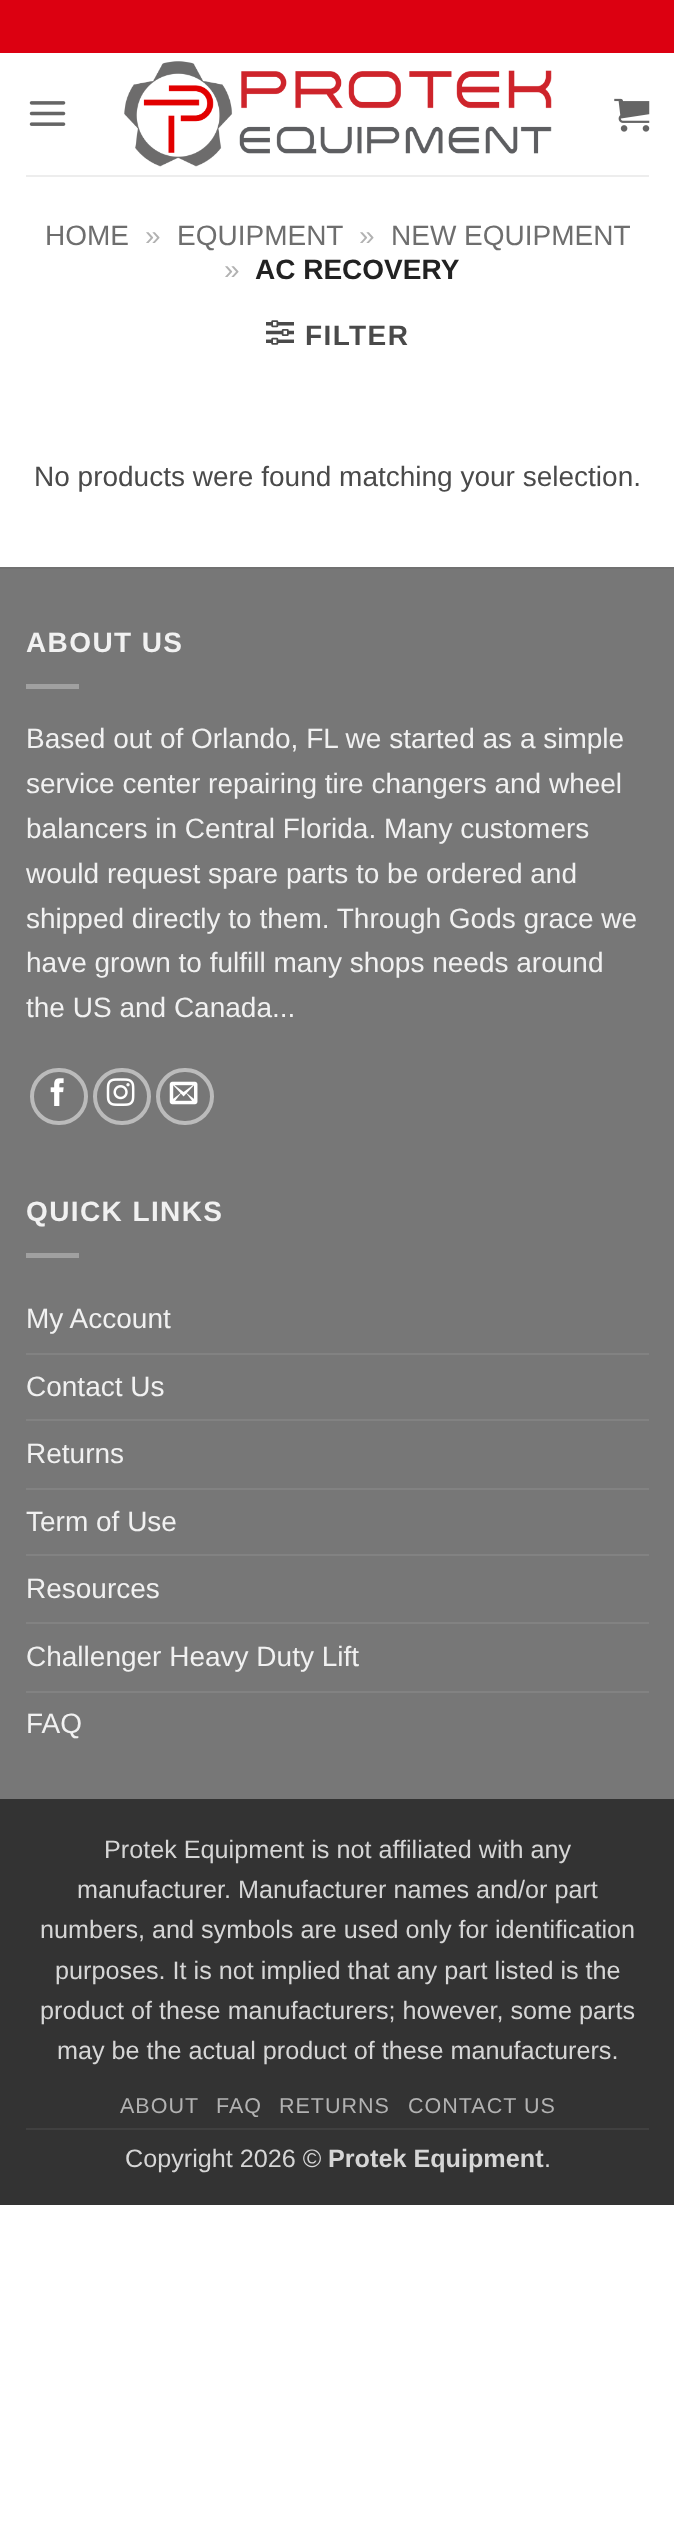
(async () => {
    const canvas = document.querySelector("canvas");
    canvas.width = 674;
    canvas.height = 2537;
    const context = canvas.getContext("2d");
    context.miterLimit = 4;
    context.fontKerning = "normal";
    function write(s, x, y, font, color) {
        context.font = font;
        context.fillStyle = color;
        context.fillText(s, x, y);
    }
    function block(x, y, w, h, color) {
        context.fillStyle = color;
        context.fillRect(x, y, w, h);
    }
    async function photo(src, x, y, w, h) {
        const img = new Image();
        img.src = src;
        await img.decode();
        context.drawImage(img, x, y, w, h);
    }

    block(0, 0, 674, 2537, "rgb(255, 255, 255)");
    block(0, 0, 674, 53, "rgb(220, 0, 17)");
    await photo("media/1.png", 29, 101, 37, 25);
    await photo("media/2.png", 124, 61, 428, 106);
    await photo("media/3.png", 614, 98, 36, 34);
    block(26, 175, 623, 2, "rgb(237, 237, 237)");
    write("HOME", 45, 245, "28px Liberation Sans", "rgb(110, 110, 110)");
    write("»", 145, 245, "28px Liberation Sans", "rgb(178, 178, 178)");
    write("EQUIPMENT", 177, 245, "28px Liberation Sans", "rgb(110, 110, 110)");
    write("»", 359, 245, "28px Liberation Sans", "rgb(178, 178, 178)");
    write("NEW EQUIPMENT", 391, 245, "28px Liberation Sans", "rgb(110, 110, 110)");
    write("»", 224, 279, "28px Liberation Sans", "rgb(178, 178, 178)");
    write("AC RECOVERY", 255, 279, "bold 28px Liberation Sans", "rgb(34, 34, 34)");
    await photo("media/4.png", 266, 320, 28, 25);
    context.letterSpacing = "1.4px";
    write("FILTER", 305, 345, "bold 28px Liberation Sans", "rgb(74, 74, 74)");
    context.letterSpacing = "0px";
    write("No products were found matching your selection.", 34, 486, "28px Liberation Sans", "rgb(74, 74, 74)");
    block(0, 569, 674, 1230, "rgb(119, 119, 119)");
    block(0, 567, 674, 2, "rgb(113, 113, 113)");
    context.letterSpacing = "1.4px";
    write("ABOUT US", 26, 652, "bold 28px Liberation Sans", "rgb(241, 241, 241)");
    block(26, 684, 53, 5, "rgb(160, 160, 160)");
    context.letterSpacing = "0px";
    write("Based out of Orlando, FL we started as a simple", 26, 748, "28px Liberation Sans", "rgb(241, 241, 241)");
    write("service center repairing tire changers and wheel", 26, 793, "28px Liberation Sans", "rgb(241, 241, 241)");
    write("balancers in Central Florida. Many customers", 26, 838, "28px Liberation Sans", "rgb(241, 241, 241)");
    write("would request spare parts to be ordered and", 26, 883, "28px Liberation Sans", "rgb(241, 241, 241)");
    write("shipped directly to them. Through Gods grace we", 26, 928, "28px Liberation Sans", "rgb(241, 241, 241)");
    write("have grown to fulfill many shops needs around", 26, 972, "28px Liberation Sans", "rgb(241, 241, 241)");
    write("the US and Canada...", 26, 1017, "28px Liberation Sans", "rgb(241, 241, 241)");
    context.beginPath();
    context.roundRect(32, 1070, 54, 53, 26.5);
    context.strokeStyle = "rgb(187, 187, 187)";
    context.lineWidth = 4;
    context.stroke();
    await photo("media/5.png", 50, 1078, 14, 28);
    context.beginPath();
    context.roundRect(95, 1070, 54, 53, 26.5);
    context.stroke();
    await photo("media/6.png", 106, 1078, 29, 28);
    context.beginPath();
    context.roundRect(158, 1070, 54, 53, 26.5);
    context.stroke();
    await photo("media/7.png", 169, 1081, 29, 24);
    context.letterSpacing = "1.4px";
    write("QUICK LINKS", 26, 1221, "bold 28px Liberation Sans", "rgb(241, 241, 241)");
    block(26, 1253, 53, 5, "rgb(160, 160, 160)");
    context.letterSpacing = "0px";
    write("My Account", 26, 1328, "28px Liberation Sans", "rgb(241, 241, 241)");
    block(26, 1353, 623, 2, "rgb(130, 130, 130)");
    write("Contact Us", 26, 1396, "28px Liberation Sans", "rgb(241, 241, 241)");
    block(26, 1419, 623, 2, "rgb(130, 130, 130)");
    write("Returns", 26, 1463, "28px Liberation Sans", "rgb(241, 241, 241)");
    block(26, 1488, 623, 2, "rgb(130, 130, 130)");
    write("Term of Use", 26, 1531, "28px Liberation Sans", "rgb(241, 241, 241)");
    block(26, 1554, 623, 2, "rgb(130, 130, 130)");
    write("Resources", 26, 1598, "28px Liberation Sans", "rgb(241, 241, 241)");
    block(26, 1622, 623, 2, "rgb(130, 130, 130)");
    write("Challenger Heavy Duty Lift", 26, 1666, "28px Liberation Sans", "rgb(241, 241, 241)");
    block(26, 1691, 623, 2, "rgb(130, 130, 130)");
    write("FAQ", 26, 1733, "28px Liberation Sans", "rgb(241, 241, 241)");
    block(0, 1799, 674, 406, "rgb(51, 51, 51)");
    write("Protek Equipment is not affiliated with any", 104, 1858, "25.2px Liberation Sans", "rgb(214, 214, 214)");
    write("manufacturer. Manufacturer names and/or part", 77, 1898, "25.2px Liberation Sans", "rgb(214, 214, 214)");
    write("numbers, and symbols are used only for identification", 40, 1938, "25.2px Liberation Sans", "rgb(214, 214, 214)");
    write("purposes. It is not implied that any part listed is the", 55, 1979, "25.2px Liberation Sans", "rgb(214, 214, 214)");
    write("product of these manufacturers; however, some parts", 40, 2019, "25.2px Liberation Sans", "rgb(214, 214, 214)");
    write("may be the actual product of these manufacturers.", 57, 2059, "25.2px Liberation Sans", "rgb(214, 214, 214)");
    block(26, 2128, 623, 2, "rgb(64, 64, 64)");
    context.letterSpacing = "1px";
    write("ABOUT", 120, 2113, "21.5px Liberation Sans", "rgb(178, 178, 178)");
    write("FAQ", 216, 2113, "21.5px Liberation Sans", "rgb(178, 178, 178)");
    write("RETURNS", 279, 2113, "21.5px Liberation Sans", "rgb(178, 178, 178)");
    write("CONTACT US", 408, 2113, "21.5px Liberation Sans", "rgb(178, 178, 178)");
    context.letterSpacing = "0px";
    write("Copyright 2026 ©", 125, 2167, "25.2px Liberation Sans", "rgb(214, 214, 214)");
    write("Protek Equipment", 328, 2167, "bold 25.2px Liberation Sans", "rgb(214, 214, 214)");
    write(".", 544, 2167, "25.2px Liberation Sans", "rgb(214, 214, 214)");
})();
